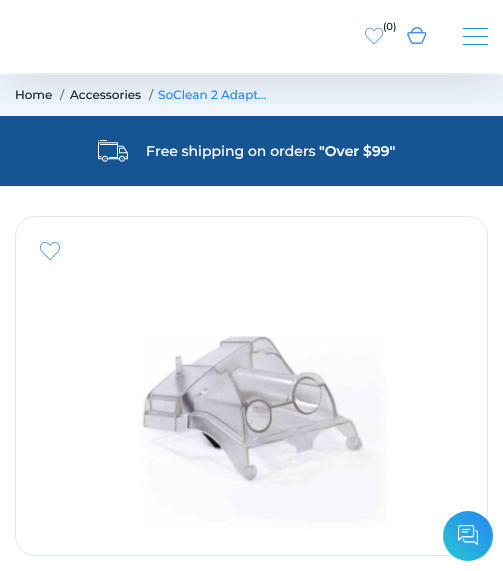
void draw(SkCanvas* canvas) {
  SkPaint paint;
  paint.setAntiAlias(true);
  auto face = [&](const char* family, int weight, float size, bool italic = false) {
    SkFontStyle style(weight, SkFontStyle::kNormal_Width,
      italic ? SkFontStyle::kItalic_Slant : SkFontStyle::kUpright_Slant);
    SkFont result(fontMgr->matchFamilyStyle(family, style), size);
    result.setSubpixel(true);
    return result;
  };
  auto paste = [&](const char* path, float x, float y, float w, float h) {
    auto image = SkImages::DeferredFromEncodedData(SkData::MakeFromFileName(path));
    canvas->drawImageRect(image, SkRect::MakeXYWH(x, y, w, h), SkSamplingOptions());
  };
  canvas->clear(0xffffffff);
  paint.setColor(0xffeff7fe);
  canvas->drawRect(SkRect::MakeXYWH(0, 75, 503, 41), paint);
  paint.setColor(0xff155594);
  canvas->drawRect(SkRect::MakeXYWH(0, 116, 503, 70), paint);
  paste("img/3.png", 98, 140, 30, 22);
  canvas->save();
  canvas->clipRect(SkRect::MakeXYWH(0, 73, 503, 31));
  paint.setColor(0x1a000000);
  paint.setMaskFilter(SkMaskFilter::MakeBlur(kNormal_SkBlurStyle, 20));
  canvas->drawRect(SkRect::MakeXYWH(0, 14, 503, 73), paint);
  paint.setMaskFilter(nullptr);
  canvas->restore();
  paste("img/1.png", 365, 27, 18, 18);
  paste("img/2.png", 407, 27, 20, 17);
  {
    const struct { float x, y, w, h; SkColor color; } items[] = {
      {463, 28, 25, 1, 0xff268bef},
      {463, 36, 25, 1, 0xff268bef},
      {463, 44, 25, 1, 0xff268bef},
    };
    for (auto [x, y, w, h, color] : items) {
      paint.setColor(color);
      canvas->drawRect(SkRect::MakeXYWH(x, y, w, h), paint);
    }
  }
  paint.setStroke(true);
  paint.setStrokeWidth(1);
  paint.setColor(0xffdce8f4);
  canvas->drawRoundRect(SkRect::MakeXYWH(15.5f, 216.5f, 472, 339), 19.5f, 19.5f, paint);
  paste("img/4.png", 140, 335, 246, 194);
  paste("img/5.png", 40, 241, 20, 20);
  paint.setStroke(false);
  {
    const SkColor colors[] = {0xffe41e3f, 0xffe41e3f, 0xff27c0d8, 0xff268bef, 0xff268bef, 0xff27c0d8};
    const float stops[] = {0, 0.2f, 0.4f, 0.6f, 0.8f, 1};
    const SkPoint ends[] = {{443, 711}, {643, 511}};
    paint.setShader(SkGradientShader::MakeLinear(ends, colors, stops, 6, SkTileMode::kClamp));
    paint.setAlpha(255);
  }
  canvas->drawCircle(468, 536, 25, paint);
  paste("img/6.png", 458, 525, 20, 20);
  auto f0 = face("Montserrat", 500, 10);
  paint.setShader(nullptr);
  paint.setColor(0xff152735);
  canvas->drawString("(0)", 383, 30, f0, paint);
  auto f1 = face("Montserrat", 500, 12);
  canvas->drawString("Home", 15, 99, f1, paint);
  paint.setColor(0xff6c757d);
  canvas->drawString("/", 60, 99, f1, paint);
  paint.setColor(0xff152735);
  canvas->drawString("Accessories", 70, 99, f1, paint);
  paint.setColor(0xff6c757d);
  canvas->drawString("/", 149, 99, f1, paint);
  paint.setColor(0xff268bef);
  canvas->drawString("SoClean 2 Adapt…", 158, 99, f1, paint);
  auto f2 = face("Montserrat", 500, 14);
  paint.setColor(0xffffffff);
  canvas->drawString("Free shipping on orders", 146, 156, f2, paint);
  auto f3 = face("Montserrat", 600, 14);
  canvas->drawString("\"Over $99\"", 319, 156, f3, paint);
}
